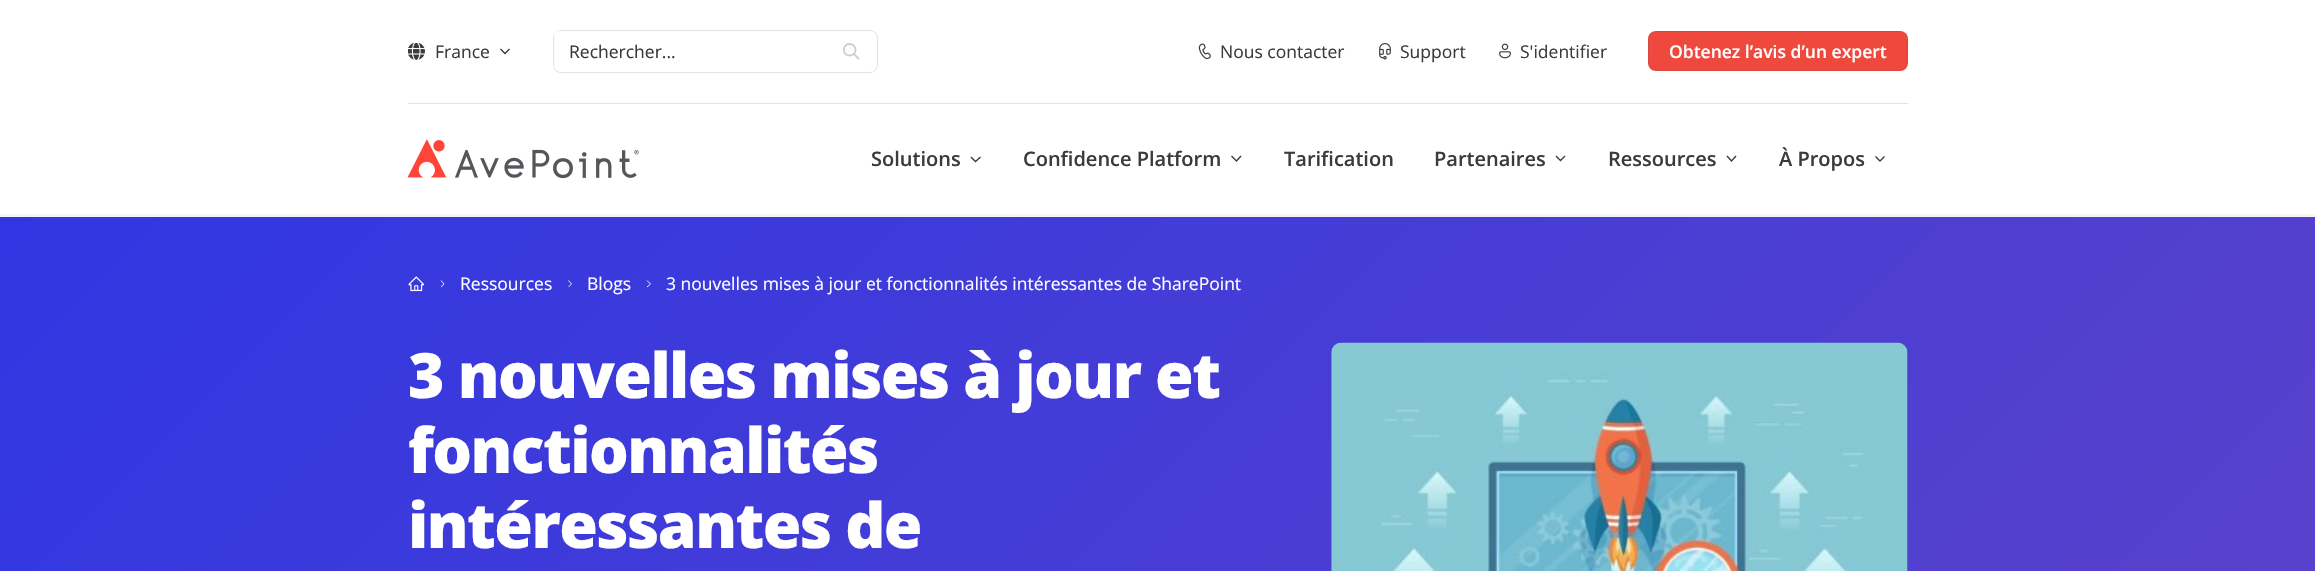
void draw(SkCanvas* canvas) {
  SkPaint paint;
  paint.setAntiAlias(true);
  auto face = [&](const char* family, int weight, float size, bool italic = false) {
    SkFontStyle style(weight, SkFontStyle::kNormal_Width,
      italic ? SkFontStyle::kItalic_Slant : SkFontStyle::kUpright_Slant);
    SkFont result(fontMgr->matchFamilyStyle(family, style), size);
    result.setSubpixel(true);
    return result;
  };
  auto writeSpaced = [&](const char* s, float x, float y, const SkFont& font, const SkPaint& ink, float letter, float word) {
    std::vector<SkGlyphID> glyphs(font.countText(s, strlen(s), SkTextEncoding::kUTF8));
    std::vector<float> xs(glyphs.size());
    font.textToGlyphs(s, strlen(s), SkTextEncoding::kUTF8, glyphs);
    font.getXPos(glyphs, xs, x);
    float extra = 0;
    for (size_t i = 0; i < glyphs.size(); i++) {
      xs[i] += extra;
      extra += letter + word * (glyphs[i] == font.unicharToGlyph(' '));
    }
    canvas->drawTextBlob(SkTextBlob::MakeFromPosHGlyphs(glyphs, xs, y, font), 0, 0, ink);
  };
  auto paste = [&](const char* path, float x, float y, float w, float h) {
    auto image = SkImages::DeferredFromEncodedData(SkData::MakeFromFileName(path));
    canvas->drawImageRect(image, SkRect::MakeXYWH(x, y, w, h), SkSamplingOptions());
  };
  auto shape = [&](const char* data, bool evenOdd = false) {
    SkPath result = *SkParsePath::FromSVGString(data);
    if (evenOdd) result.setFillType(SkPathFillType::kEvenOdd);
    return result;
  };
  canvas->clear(0xffffffff);
  paint.setColor(0xffe2e3e3);
  canvas->drawRect(SkRect::MakeXYWH(408, 103, 1500, 1), paint);
  paste("img/1.png", 408, 43, 17, 17);
  paint.setStroke(true);
  paint.setStrokeWidth(1.4f);
  paint.setColor(0xff3a3b3d);
  canvas->drawPath(shape("M500.5 49L505 53.5L509.5 49"), paint);
  paint.setStrokeWidth(1);
  paint.setColor(0xffe2e3e3);
  canvas->drawRoundRect(SkRect::MakeXYWH(553.5f, 30.5f, 324, 42), 7.5f, 7.5f, paint);
  paint.setStroke(false);
  paint.setColor(0xffffffff);
  canvas->drawPath(shape("M560 31H826V71H560C556.5 71 554 68.5 554 65V37C554 33.5 556.5 31 560 31Z"), paint);
  paint.setStroke(true);
  paint.setStrokeWidth(1.9f);
  paint.setStrokeCap(SkPaint::kSquare_Cap);
  paint.setColor(0xffcececf);
  canvas->drawPath(shape("M858.5 58.5L854 54M849.5 55.5C857.5 55.5 857.5 44 849.5 44C842 44 842 55.5 849.5 55.5Z"), paint);
  paste("img/2.png", 1198, 43, 13, 17);
  paste("img/3.png", 1379, 43, 12, 17);
  paste("img/4.png", 1499, 43, 12, 16);
  paint.setStroke(false);
  paint.setColor(0xffef493e);
  canvas->drawRoundRect(SkRect::MakeXYWH(1648, 31, 260, 40), 8, 8, paint);
  paint.setStroke(true);
  paint.setStrokeWidth(1);
  paint.setStrokeCap(SkPaint::kButt_Cap);
  paint.setColor(0x26404246);
  canvas->drawRoundRect(SkRect::MakeXYWH(1648.5f, 31.5f, 259, 39), 7.5f, 7.5f, paint);
  paint.setStroke(false);
  paint.setColor(0xfff5f5f5);
  canvas->drawRect(SkRect::MakeXYWH(0, 214, 2315, 3), paint);
  paste("img/5.png", 408, 139, 231, 40);
  paint.setStroke(true);
  paint.setStrokeWidth(1.4f);
  paint.setColor(0xff3a3b3d);
  canvas->drawPath(shape("M980.5 157L975.5 161.5L971 157"), paint);
  canvas->drawPath(shape("M1241 156L1236.5 161L1231.5 156"), paint);
  canvas->drawPath(shape("M1565 156L1560.5 160.5L1556 156"), paint);
  canvas->drawPath(shape("M1736 156L1731.5 161L1727 156"), paint);
  canvas->drawPath(shape("M1884.5 156.5L1880 161L1875.5 156.5"), paint);
  paint.setStroke(false);
  {
    const SkColor colors[] = {0xffe05d51, 0xffb23a8d, 0xff6b46c1, 0xff3037e2};
    const float stops[] = {0, 0.33f, 0.67f, 1};
    const SkPoint ends[] = {{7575, 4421}, {1685, -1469}};
    paint.setShader(SkGradientShader::MakeLinear(ends, colors, stops, 4, SkTileMode::kClamp));
    paint.setAlpha(255);
  }
  canvas->drawRect(SkRect::MakeXYWH(0, 217, 2315, 354), paint);
  paste("img/6.png", 408, 276, 16, 16);
  paint.setStroke(true);
  paint.setStrokeWidth(0.9f);
  paint.setShader(nullptr);
  paint.setColor(0xffffffff);
  canvas->drawPath(shape("M441 280.5L444 284L441 287"), paint);
  canvas->drawPath(shape("M568.5 280.5L571.5 284L568.5 287"), paint);
  canvas->drawPath(shape("M647 280.5L650.5 284L647 287"), paint);
  paste("img/7.png", 1331, 342, 577, 229);
  auto f0 = face("Open Sans", 400, 17.5f);
  paint.setStroke(false);
  paint.setColor(0xff3a3b3d);
  canvas->drawString("France", 435, 58, f0, paint);
  paint.setColor(0xff34373b);
  canvas->drawString("Rechercher...", 569, 58, f0, paint);
  paint.setColor(0xff3a3b3d);
  {
    const struct { const char* s; float x, y; } items[] = {
      {"Nous contacter", 1220, 58},
      {"Support", 1400, 58},
      {"S'identifier", 1520, 58},
    };
    for (auto [s, x, y] : items) {
      canvas->drawString(s, x, y, f0, paint);
    }
  }
  auto f1 = face("Open Sans", 600, 17.5f);
  paint.setColor(0xffffffff);
  canvas->drawString("Obtenez l’avis d’un expert", 1669, 58, f1, paint);
  auto f2 = face("Open Sans", 600, 20);
  paint.setColor(0xff3a3b3d);
  {
    const struct { const char* s; float x, y; } items[] = {
      {"Solutions", 871, 166},
      {"Confidence Platform", 1023, 166},
      {"Tarification", 1284, 166},
      {"Partenaires", 1434, 166},
      {"Ressources", 1608, 166},
      {"À Propos", 1779, 166},
    };
    for (auto [s, x, y] : items) {
      canvas->drawString(s, x, y, f2, paint);
    }
  }
  paint.setColor(0xffffffff);
  {
    const struct { const char* s; float x, y; } items[] = {
      {"Ressources", 460, 290},
      {"Blogs", 587, 290},
      {"3 nouvelles mises à jour et fonctionnalités intéressantes de SharePoint", 666, 290},
    };
    for (auto [s, x, y] : items) {
      canvas->drawString(s, x, y, f0, paint);
    }
  }
  auto f3 = face("Open Sans", 800, 62.5f);
  {
    const struct { const char* s; float x, y; } items[] = {
      {"3 nouvelles mises à jour et", 408, 398},
      {"fonctionnalités", 408, 473},
      {"intéressantes de", 408, 548},
    };
    for (auto [s, x, y] : items) {
      writeSpaced(s, x, y, f3, paint, -1.55f, 0);
    }
  }
}
